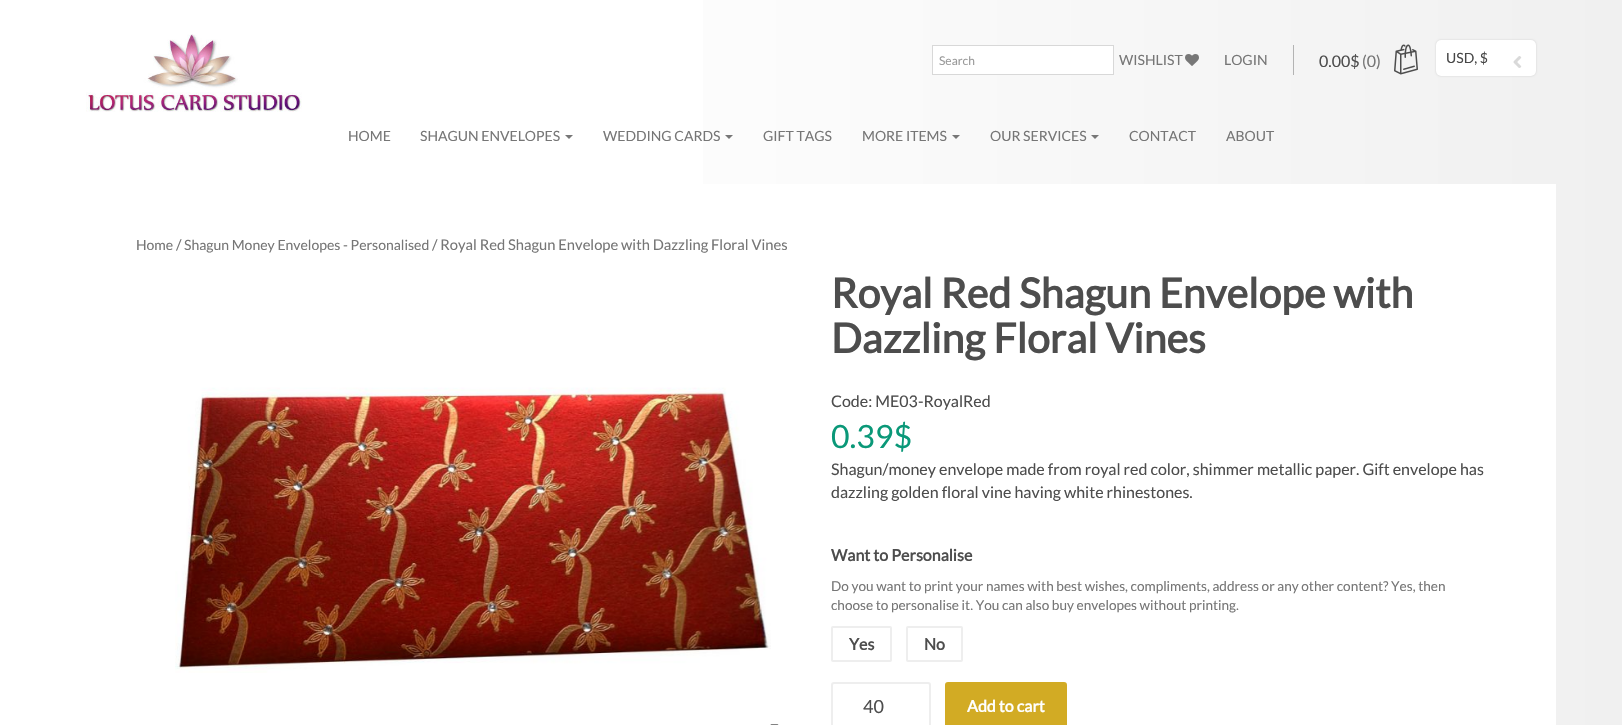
void draw(SkCanvas* canvas) {
  SkPaint paint;
  paint.setAntiAlias(true);
  auto face = [&](const char* family, int weight, float size, bool italic = false) {
    SkFontStyle style(weight, SkFontStyle::kNormal_Width,
      italic ? SkFontStyle::kItalic_Slant : SkFontStyle::kUpright_Slant);
    SkFont result(fontMgr->matchFamilyStyle(family, style), size);
    result.setSubpixel(true);
    return result;
  };
  auto paste = [&](const char* path, float x, float y, float w, float h) {
    auto image = SkImages::DeferredFromEncodedData(SkData::MakeFromFileName(path));
    canvas->drawImageRect(image, SkRect::MakeXYWH(x, y, w, h), SkSamplingOptions());
  };
  auto shape = [&](const char* data, bool evenOdd = false) {
    SkPath result = *SkParsePath::FromSVGString(data);
    if (evenOdd) result.setFillType(SkPathFillType::kEvenOdd);
    return result;
  };
  canvas->clear(0xffffffff);
  {
    const SkColor colors[] = {0xffffffff, 0xfff0f0f0};
    const float stops[] = {0.32f, 1};
    const SkPoint ends[] = {{0, 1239}, {1622, 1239}};
    paint.setShader(SkGradientShader::MakeLinear(ends, colors, stops, 2, SkTileMode::kClamp));
    paint.setAlpha(255);
  }
  canvas->drawRect(SkRect::MakeXYWH(703, 0, 919, 725), paint);
  paste("img/1.png", 86, 34, 216, 78);
  paint.setShader(nullptr);
  paint.setColor(0xffffffff);
  canvas->drawRect(SkRect::MakeXYWH(932.5f, 45.5f, 181, 29), paint);
  paint.setStroke(true);
  paint.setStrokeWidth(1);
  paint.setColor(0xffd8d8d8);
  canvas->drawRect(SkRect::MakeXYWH(932.5f, 45.5f, 181, 29), paint);
  paste("img/2.png", 1185, 54, 14, 12);
  paint.setStroke(false);
  paint.setColor(0xffb3b3b3);
  canvas->drawRect(SkRect::MakeXYWH(1293, 45, 1, 30), paint);
  paste("img/3.png", 1394, 44, 24, 31);
  paint.setColor(0xffcccccc);
  paint.setMaskFilter(SkMaskFilter::MakeBlur(kNormal_SkBlurStyle, 1));
  canvas->drawRoundRect(SkRect::MakeXYWH(1436, 40, 100, 36), 5, 5, paint);
  paint.setMaskFilter(nullptr);
  paint.setColor(0xffffffff);
  canvas->drawRoundRect(SkRect::MakeXYWH(1436, 40, 100, 36), 5, 5, paint);
  paste("img/4.png", 1513, 56, 9, 12);
  paint.setColor(0xff777777);
  canvas->drawPath(shape("M565 135H573L569 139Z"), paint);
  canvas->drawPath(shape("M725 135H733L729 139Z"), paint);
  canvas->drawPath(shape("M952 135H960L956 139Z"), paint);
  canvas->drawPath(shape("M1091 135H1099L1095 139Z"), paint);
  paint.setColor(0xffffffff);
  canvas->drawRect(SkRect::MakeXYWH(703, 184, 853, 541), paint);
  paste("img/5.png", 175, 387, 596, 286);
  paste("img/6.png", 770, 724, 9, 1);
  paint.setStroke(true);
  paint.setStrokeWidth(2);
  paint.setColor(0xffeeeeee);
  canvas->drawRoundRect(SkRect::MakeXYWH(832, 627, 59, 34), 1, 1, paint);
  canvas->drawRoundRect(SkRect::MakeXYWH(907, 627, 55, 34), 1, 1, paint);
  canvas->drawRoundRect(SkRect::MakeXYWH(832, 683, 98, 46), 2, 2, paint);
  paint.setStroke(false);
  paint.setColor(0xffd2ab24);
  canvas->drawRoundRect(SkRect::MakeXYWH(946, 683, 120, 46), 2, 2, paint);
  paint.setStroke(true);
  canvas->drawRoundRect(SkRect::MakeXYWH(946, 683, 120, 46), 2, 2, paint);
  auto f0 = face("Lato", 400, 12);
  paint.setStroke(false);
  paint.setColor(0xff999999);
  canvas->drawString("Search", 939, 65, f0, paint);
  auto f1 = face("Lato", 400, 14);
  paint.setColor(0xff767676);
  canvas->drawString("WISHLIST", 1119, 65, f1, paint);
  canvas->drawString("LOGIN", 1224, 65, f1, paint);
  auto f2 = face("Lato", 400, 16);
  paint.setColor(0xff4d4d4d);
  canvas->drawString("0.00$", 1319, 67, f2, paint);
  paint.setColor(0xff767676);
  canvas->drawString("(0)", 1362, 67, f2, paint);
  paint.setColor(0xff474747);
  canvas->drawString("USD, $", 1446, 63, f1, paint);
  paint.setColor(0xff767676);
  {
    const struct { const char* s; float x, y; } items[] = {
      {"HOME", 348, 141},
      {"SHAGUN ENVELOPES", 420, 141},
      {"WEDDING CARDS", 603, 141},
      {"GIFT TAGS", 763, 141},
      {"MORE ITEMS", 862, 141},
      {"OUR SERVICES", 990, 141},
      {"CONTACT", 1129, 141},
      {"ABOUT", 1226, 141},
      {"Home", 136, 250},
    };
    for (auto [s, x, y] : items) {
      canvas->drawString(s, x, y, f1, paint);
    }
  }
  auto f3 = face("Lato", 400, 14.75f);
  canvas->drawString("/", 176, 250, f3, paint);
  canvas->drawString("Shagun Money Envelopes - Personalised", 184, 250, f1, paint);
  canvas->drawString("/ Royal Red Shagun Envelope with Dazzling Floral Vines", 432, 250, f3, paint);
  auto f4 = face("Lato", 700, 41);
  paint.setColor(0xff4d4d4d);
  canvas->drawString("Royal Red Shagun Envelope with", 831, 308, f4, paint);
  canvas->drawString("Dazzling Floral Vines", 831, 353, f4, paint);
  canvas->drawString("Code: ME03-RoyalRed", 831, 407, f2, paint);
  auto f5 = face("Lato", 400, 32);
  paint.setColor(0xff0a9878);
  canvas->drawString("0.39$", 831, 448, f5, paint);
  paint.setColor(0xff4d4d4d);
  canvas->drawString("Shagun/money envelope made from royal red color, shimmer metallic paper. Gift envelope has", 831, 475, f2, paint);
  canvas->drawString("dazzling golden floral vine having white rhinestones.", 831, 498, f2, paint);
  auto f6 = face("Lato", 700, 16);
  canvas->drawString("Want to Personalise", 831, 561, f6, paint);
  auto f7 = face("Lato", 400, 13.6f);
  paint.setColor(0xff767676);
  canvas->drawString("Do you want to print your names with best wishes, compliments, address or any other content? Yes, then", 831, 591, f7, paint);
  canvas->drawString("choose to personalise it. You can also buy envelopes without printing.", 831, 610, f7, paint);
  paint.setColor(0xff4d4d4d);
  canvas->drawString("Yes", 849, 650, f6, paint);
  canvas->drawString("No", 924, 650, f6, paint);
  auto f8 = face("Lato", 400, 18);
  canvas->drawString("40", 863, 713, f8, paint);
  paint.setColor(0xffffffff);
  canvas->drawString("Add to cart", 967, 712, f6, paint);
}
